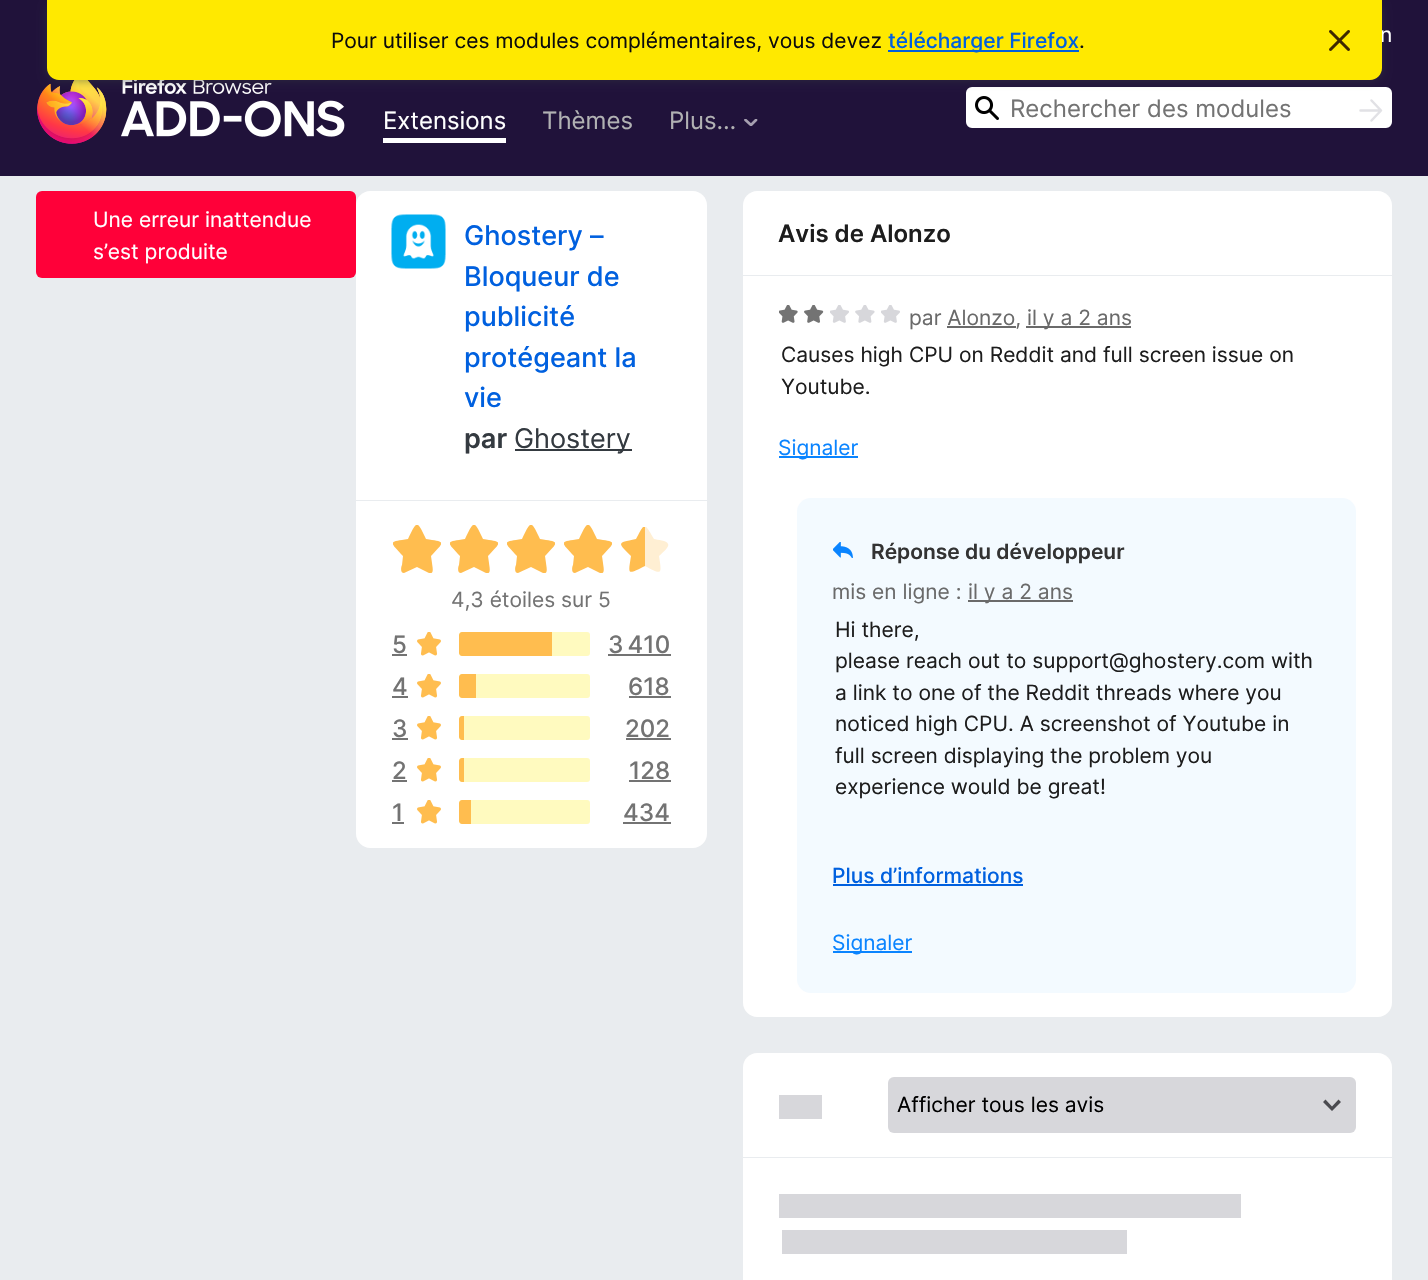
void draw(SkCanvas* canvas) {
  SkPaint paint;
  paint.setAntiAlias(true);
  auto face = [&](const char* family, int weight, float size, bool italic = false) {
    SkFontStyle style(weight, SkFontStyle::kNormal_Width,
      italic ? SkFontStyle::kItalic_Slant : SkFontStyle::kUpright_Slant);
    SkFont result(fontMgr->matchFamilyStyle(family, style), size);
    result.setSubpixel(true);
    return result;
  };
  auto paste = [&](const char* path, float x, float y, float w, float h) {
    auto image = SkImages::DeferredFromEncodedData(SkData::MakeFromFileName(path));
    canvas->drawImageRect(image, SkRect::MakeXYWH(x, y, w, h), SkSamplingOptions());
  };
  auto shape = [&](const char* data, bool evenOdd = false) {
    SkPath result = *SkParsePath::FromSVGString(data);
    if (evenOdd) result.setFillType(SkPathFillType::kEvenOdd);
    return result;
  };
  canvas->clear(0xff20123a);
  paste("img/1.png", 37, 80, 308, 64);
  paint.setColor(0xffffffff);
  canvas->drawRect(SkRect::MakeXYWH(383, 138, 123, 5), paint);
  canvas->save();
  canvas->clipRect(SkRect::MakeXYWH(744, 119, 14, 7));
  paint.setStroke(true);
  paint.setStrokeWidth(2.7f);
  paint.setStrokeCap(SkPaint::kRound_Cap);
  paint.setStrokeJoin(SkPaint::kRound_Join);
  paint.setColor(0xffa6a0b0);
  canvas->drawPath(shape("M756 120L751 125L745.5 120"), paint);
  canvas->restore();
  paint.setStroke(false);
  paint.setColor(0xffffffff);
  canvas->drawRoundRect(SkRect::MakeXYWH(967, 88, 424, 39), 5, 5, paint);
  paint.setStroke(true);
  paint.setStrokeWidth(2);
  paint.setStrokeCap(SkPaint::kButt_Cap);
  paint.setStrokeJoin(SkPaint::kMiter_Join);
  canvas->drawRoundRect(SkRect::MakeXYWH(967, 88, 424, 39), 5, 5, paint);
  paste("img/2.png", 975, 96, 24, 24);
  paint.setStrokeWidth(2.5f);
  paint.setStrokeCap(SkPaint::kRound_Cap);
  paint.setStrokeJoin(SkPaint::kRound_Join);
  paint.setColor(0xffe1e1e5);
  canvas->drawPath(shape("M1360.5 110.5H1380M1371.5 100.5L1381 110.5L1371.5 120.5"), paint);
  paint.setStroke(false);
  paint.setColor(0x80343a40);
  paint.setMaskFilter(SkMaskFilter::MakeBlur(kNormal_SkBlurStyle, 5));
  canvas->drawRoundRect(SkRect::MakeXYWH(47, 2, 1335, 79), 12, 12, paint);
  paint.setMaskFilter(nullptr);
  paint.setColor(0xffe9ecef);
  canvas->drawRect(SkRect::MakeXYWH(0, 176, 1428, 1104), paint);
  paint.setColor(0xffff0039);
  canvas->drawRoundRect(SkRect::MakeXYWH(36, 191, 320, 87), 6, 6, paint);
  paint.setColor(0xffffffff);
  canvas->drawPath(shape("M370 191H693C700.5 191 707 197.5 707 205V500H356V205C356 197.5 362.5 191 370 191Z"), paint);
  paste("img/4.png", 391, 214, 55, 55);
  paint.setColor(0xff343a40);
  canvas->drawRect(SkRect::MakeXYWH(515, 449, 117, 2), paint);
  paint.setColor(0xffffffff);
  canvas->drawPath(shape("M356 501H707V834C707 841.5 700.5 848 693 848H370C362.5 848 356 841.5 356 834Z"), paint);
  canvas->save();
  canvas->clipRect(SkRect::MakeXYWH(393, 525, 48, 48));
  paint.setColor(0xffffbd4f);
  canvas->drawPath(shape("M404 573C400 573 401 567 402 565L403 556C389 541 388 542 408 539C417 520 417 520 426 539C446 542 445 541 431 556L432 563C432 565 435 575 429 573L417 567Z"), paint);
  canvas->restore();
  canvas->save();
  canvas->clipRect(SkRect::MakeXYWH(450, 525, 48, 48));
  canvas->drawPath(shape("M461 573C457 573 458 567 459 565L460 556C446 541 445 542 465 539C474 520 474 520 483 539C503 542 502 541 488 556L489 563C489 565 492 575 486 573L474 567Z"), paint);
  canvas->restore();
  canvas->save();
  canvas->clipRect(SkRect::MakeXYWH(507, 525, 48, 48));
  canvas->drawPath(shape("M518 573C514 573 515 567 516 565L517 556C503 541 502 542 522 539C531 520 531 520 540 539C560 542 559 541 545 556L546 563C546 565 549 575 543 573L531 567Z"), paint);
  canvas->restore();
  canvas->save();
  canvas->clipRect(SkRect::MakeXYWH(564, 525, 48, 48));
  canvas->drawPath(shape("M575 573C571 573 572 567 573 565L574 556C560 541 559 542 579 539C588 520 588 520 597 539C617 542 616 541 602 556L603 563C603 565 606 575 600 573L588 567Z"), paint);
  canvas->restore();
  canvas->save();
  canvas->clipRect(SkRect::MakeXYWH(621, 527, 50, 46));
  {
    const SkColor colors[] = {0xffffbd4f, 0xffffefd3};
    const float stops[] = {0.5f, 0.5f};
    const SkPoint ends[] = {{621, 527}, {669, 527}};
    paint.setShader(SkGradientShader::MakeLinear(ends, colors, stops, 2, SkTileMode::kClamp));
    paint.setAlpha(255);
  }
  canvas->drawPath(shape("M668 544C667 540 657 540 654 539C644 522 645 522 636 539C617 543 617 542 631 556C628 575 627 575 645 566C662 575 662 575 659 556C661 554 670 547 668 544Z"), paint);
  canvas->restore();
  paint.setShader(nullptr);
  paint.setColor(0xff737373);
  canvas->drawRect(SkRect::MakeXYWH(392, 654, 15, 2), paint);
  paste("img/5.png", 417, 632, 24, 24);
  paint.setColor(0xfffffabf);
  canvas->drawRoundRect(SkRect::MakeXYWH(459, 632, 131, 24), 3, 3, paint);
  paint.setColor(0xffffbd4f);
  canvas->drawPath(shape("M462 632H552V656H462C460.5 656 459 654.5 459 653V635C459 633.5 460.5 632 462 632Z"), paint);
  paint.setColor(0xff737373);
  canvas->drawRect(SkRect::MakeXYWH(608, 654, 63, 2), paint);
  canvas->drawRect(SkRect::MakeXYWH(392, 696, 16, 2), paint);
  paste("img/5.png", 417, 674, 24, 24);
  paint.setColor(0xfffffabf);
  canvas->drawRoundRect(SkRect::MakeXYWH(459, 674, 131, 24), 3, 3, paint);
  paint.setColor(0xffffbd4f);
  canvas->drawPath(shape("M462 674H476V698H462C460.5 698 459 696.5 459 695V677C459 675.5 460.5 674 462 674Z"), paint);
  paint.setColor(0xff737373);
  canvas->drawRect(SkRect::MakeXYWH(629, 696, 42, 2), paint);
  canvas->drawRect(SkRect::MakeXYWH(392, 738, 16, 2), paint);
  paste("img/5.png", 417, 716, 24, 24);
  paint.setColor(0xfffffabf);
  canvas->drawRoundRect(SkRect::MakeXYWH(459, 716, 131, 24), 3, 3, paint);
  paint.setColor(0xffffbd4f);
  canvas->drawPath(shape("M462 716H464V740H462C460.5 740 459 738.5 459 737V719C459 717.5 460.5 716 462 716Z"), paint);
  paint.setColor(0xff737373);
  canvas->drawRect(SkRect::MakeXYWH(626, 738, 45, 2), paint);
  canvas->drawRect(SkRect::MakeXYWH(392, 780, 15, 2), paint);
  paste("img/5.png", 417, 758, 24, 24);
  paint.setColor(0xfffffabf);
  canvas->drawRoundRect(SkRect::MakeXYWH(459, 758, 131, 24), 3, 3, paint);
  paint.setColor(0xffffbd4f);
  canvas->drawPath(shape("M462 758H464V782H462C460.5 782 459 780.5 459 779V761C459 759.5 460.5 758 462 758Z"), paint);
  paint.setColor(0xff737373);
  canvas->drawRect(SkRect::MakeXYWH(629, 780, 42, 2), paint);
  canvas->drawRect(SkRect::MakeXYWH(392, 822, 12, 2), paint);
  paste("img/5.png", 417, 800, 24, 24);
  paint.setColor(0xfffffabf);
  canvas->drawRoundRect(SkRect::MakeXYWH(459, 800, 131, 24), 3, 3, paint);
  paint.setColor(0xffffbd4f);
  canvas->drawPath(shape("M462 800H471V824H462C460.5 824 459 822.5 459 821V803C459 801.5 460.5 800 462 800Z"), paint);
  paint.setColor(0xff737373);
  canvas->drawRect(SkRect::MakeXYWH(623, 822, 48, 2), paint);
  paint.setColor(0xffffffff);
  canvas->drawPath(shape("M757 191H1378C1385.5 191 1392 197.5 1392 205V275H743V205C743 197.5 749.5 191 757 191Z"), paint);
  canvas->drawPath(shape("M743 276H1392V1003C1392 1010.5 1385.5 1017 1378 1017H757C749.5 1017 743 1010.5 743 1003Z"), paint);
  paste("img/6.png", 779, 305, 19, 18);
  paste("img/7.png", 804, 305, 20, 18);
  paste("img/8.png", 830, 305, 19, 18);
  paste("img/9.png", 855, 305, 20, 18);
  paste("img/8.png", 881, 305, 19, 18);
  {
    const struct { float x, y, w, h; SkColor color; } items[] = {
      {1026, 326, 105, 2, 0xff6a6a6a},
      {947, 326, 69, 2, 0xff6a6a6a},
      {779, 456, 79, 2, 0xff0a84ff},
    };
    for (auto [x, y, w, h, color] : items) {
      paint.setColor(color);
      canvas->drawRect(SkRect::MakeXYWH(x, y, w, h), paint);
    }
  }
  paint.setColor(0xfff3faff);
  canvas->drawRoundRect(SkRect::MakeXYWH(797, 498, 559, 495), 14, 14, paint);
  paste("img/10.png", 833, 542, 20, 16);
  {
    const struct { float x, y, w, h; SkColor color; } items[] = {
      {968, 600, 105, 2, 0xff6a6a6a},
      {833, 884, 190, 2, 0xff0060df},
      {833, 951, 79, 2, 0xff0a84ff},
    };
    for (auto [x, y, w, h, color] : items) {
      paint.setColor(color);
      canvas->drawRect(SkRect::MakeXYWH(x, y, w, h), paint);
    }
  }
  paint.setColor(0xffffffff);
  canvas->drawPath(shape("M757 1053H1378C1385.5 1053 1392 1059.5 1392 1067V1157H743V1067C743 1059.5 749.5 1053 757 1053Z"), paint);
  paint.setColor(0xffd7d7db);
  canvas->drawRect(SkRect::MakeXYWH(779, 1095, 43, 24), paint);
  canvas->drawRoundRect(SkRect::MakeXYWH(888, 1077, 468, 56), 6, 6, paint);
  paint.setColor(0xff4a4a4f);
  canvas->drawPath(shape("M1338.5 1099.5L1332 1106.5L1325.5 1099.5L1323 1102L1332 1111L1341 1102Z", true), paint);
  {
    const struct { float x, y, w, h; SkColor color; } items[] = {
      {743, 1158, 649, 122, 0xffffffff},
      {779, 1194, 462, 24, 0xffd7d7db},
      {782, 1230, 345, 24, 0xffd7d7db},
    };
    for (auto [x, y, w, h, color] : items) {
      paint.setColor(color);
      canvas->drawRect(SkRect::MakeXYWH(x, y, w, h), paint);
    }
  }
  auto f0 = face("Inter", 400, 21);
  paint.setColor(0xffffffff);
  canvas->drawString("n", 1380, 42, f0, paint);
  auto f1 = face("Inter", 400, 24);
  canvas->drawString("Extensions", 383, 129, f1, paint);
  paint.setColor(0xffb1b1b3);
  canvas->drawString("Thèmes", 542, 129, f1, paint);
  canvas->drawString("Plus…", 669, 129, f1, paint);
  paint.setColor(0xff737373);
  canvas->drawString("Rechercher des modules", 1010, 117, f1, paint);
  paint.setColor(0xffffe900);
  canvas->drawPath(shape("M47 0H1382V68C1382 74.5 1376.5 80 1370 80H59C52.5 80 47 74.5 47 68Z"), paint);
  paint.setColor(0xff0c0c0d);
  canvas->drawString("Pour utiliser ces modules complémentaires, vous devez", 331, 48, f0, paint);
  canvas->drawString(".", 1079, 48, f0, paint);
  paint.setColor(0xff0060df);
  canvas->drawRect(SkRect::MakeXYWH(888, 50, 191, 2), paint);
  auto f2 = face("Inter", 500, 21);
  canvas->drawString("télécharger Firefox", 888, 48, f2, paint);
  paste("img/3.png", 1329, 30, 21, 21);
  paint.setColor(0xffffffff);
  canvas->drawString("Une erreur inattendue", 93, 227, f0, paint);
  canvas->drawString("s’est produite", 93, 259, f0, paint);
  auto f3 = face("Inter", 500, 27);
  paint.setColor(0xff0060df);
  {
    const struct { const char* s; float x, y; } items[] = {
      {"Ghostery –", 464, 245},
      {"Bloqueur de", 464, 286},
      {"publicité", 464, 326},
      {"protégeant la", 464, 367},
      {"vie", 464, 407},
    };
    for (auto [s, x, y] : items) {
      canvas->drawString(s, x, y, f3, paint);
    }
  }
  auto f4 = face("Inter", 600, 27);
  paint.setColor(0xff343a40);
  canvas->drawString("par", 464, 448, f4, paint);
  auto f5 = face("Inter", 400, 27);
  canvas->drawString("Ghostery", 514, 448, f5, paint);
  paint.setColor(0xff737373);
  canvas->drawString("4,3 étoiles sur 5", 451, 607, f0, paint);
  auto f6 = face("Inter", 500, 24);
  {
    const struct { const char* s; float x, y; } items[] = {
      {"5", 392, 653},
      {"3 410", 608, 653},
      {"4", 392, 695},
      {"618", 628, 695},
      {"3", 392, 737},
      {"202", 625, 737},
      {"2", 392, 779},
      {"128", 629, 779},
      {"1", 392, 821},
      {"434", 623, 821},
    };
    for (auto [s, x, y] : items) {
      canvas->drawString(s, x, y, f6, paint);
    }
  }
  auto f7 = face("Inter", 600, 24);
  paint.setColor(0xff1d1d1d);
  canvas->drawString("Avis de Alonzo", 778, 242, f7, paint);
  paint.setColor(0xff6a6a6a);
  canvas->drawString("par Alonzo,", 909, 325, f0, paint);
  canvas->drawString("il y a 2 ans", 1027, 325, f0, paint);
  paint.setColor(0xff1d1d1d);
  canvas->drawString("Causes high CPU on Reddit and full screen issue on", 781, 362, f0, paint);
  canvas->drawString("Youtube.", 781, 394, f0, paint);
  paint.setColor(0xff0a84ff);
  canvas->drawString("Signaler", 778, 455, f0, paint);
  auto f8 = face("Inter", 600, 21);
  paint.setColor(0xff333333);
  canvas->drawString("Réponse du développeur", 871, 559, f8, paint);
  paint.setColor(0xff6a6a6a);
  canvas->drawString("mis en ligne :", 832, 599, f0, paint);
  canvas->drawString("il y a 2 ans", 968, 599, f0, paint);
  paint.setColor(0xff1d1d1d);
  {
    const struct { const char* s; float x, y; } items[] = {
      {"Hi there,", 835, 637},
      {"please reach out to support@ghostery.com with", 835, 668},
      {"a link to one of the Reddit threads where you", 835, 700},
      {"noticed high CPU. A screenshot of Youtube in", 835, 731},
      {"full screen displaying the problem you", 835, 763},
      {"experience would be great!", 835, 794},
    };
    for (auto [s, x, y] : items) {
      canvas->drawString(s, x, y, f0, paint);
    }
  }
  paint.setColor(0xff0060df);
  canvas->drawString("Plus d’informations", 832, 883, f2, paint);
  paint.setColor(0xff0a84ff);
  canvas->drawString("Signaler", 832, 950, f0, paint);
  paint.setColor(0xff000000);
  canvas->drawString("Afficher tous les avis", 897, 1112, f0, paint);
}
